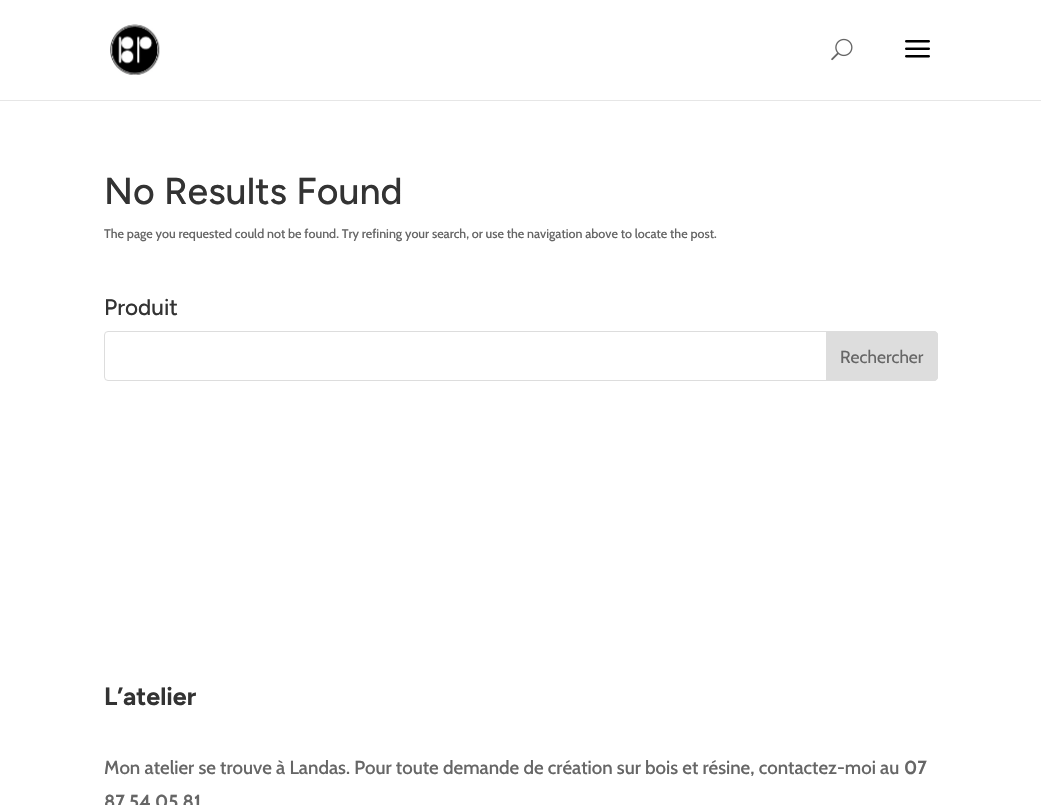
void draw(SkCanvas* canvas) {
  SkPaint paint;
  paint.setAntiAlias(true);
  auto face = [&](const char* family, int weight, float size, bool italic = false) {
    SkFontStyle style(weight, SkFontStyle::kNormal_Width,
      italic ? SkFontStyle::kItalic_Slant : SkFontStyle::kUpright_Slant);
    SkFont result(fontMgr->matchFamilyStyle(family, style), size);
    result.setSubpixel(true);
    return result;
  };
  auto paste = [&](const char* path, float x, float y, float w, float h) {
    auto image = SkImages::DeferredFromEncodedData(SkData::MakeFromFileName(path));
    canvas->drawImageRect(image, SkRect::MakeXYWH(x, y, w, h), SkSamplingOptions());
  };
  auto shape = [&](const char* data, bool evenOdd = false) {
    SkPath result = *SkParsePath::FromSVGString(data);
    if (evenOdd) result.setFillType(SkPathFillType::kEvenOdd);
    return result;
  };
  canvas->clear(0xffffffff);
  paint.setColor(0xffe6e6e6);
  canvas->drawRect(SkRect::MakeXYWH(0, 100, 1041, 1), paint);
  paste("img/1.png", 110, 24, 50, 51);
  paste("img/2.png", 831, 38, 22, 23);
  paste("img/3.png", 905, 40, 25, 18);
  paint.setStroke(true);
  paint.setStrokeWidth(1);
  paint.setColor(0xffdddddd);
  canvas->drawRoundRect(SkRect::MakeXYWH(104.5f, 331.5f, 833, 49), 3.5f, 3.5f, paint);
  paint.setStroke(false);
  canvas->drawPath(shape("M826.5 331.5H934C936 331.5 937.5 333 937.5 335V377C937.5 379 936 380.5 934 380.5H826.5Z"), paint);
  paint.setStroke(true);
  canvas->drawPath(shape("M826.5 331.5H934C936 331.5 937.5 333 937.5 335V377C937.5 379 936 380.5 934 380.5H826.5Z"), paint);
  auto f0 = face("Figtree", 500, 37.5f);
  paint.setStroke(false);
  paint.setColor(0xff333333);
  canvas->drawString("No Results Found", 104, 204, f0, paint);
  auto f1 = face("Cabin", 500, 12.5f);
  paint.setColor(0xff666666);
  canvas->drawString("The page you requested could not be found. Try refining your search, or use the navigation above to locate the post.", 104, 238, f1, paint);
  auto f2 = face("Figtree", 500, 22.5f);
  paint.setColor(0xff333333);
  canvas->drawString("Produit", 104, 315, f2, paint);
  auto f3 = face("Cabin", 400, 17.5f);
  paint.setColor(0xff666666);
  canvas->drawString("Rechercher", 840, 363, f3, paint);
  auto f4 = face("Figtree", 700, 25);
  paint.setColor(0xff333333);
  canvas->drawString("L’atelier", 104, 705, f4, paint);
  auto f5 = face("Cabin", 500, 18.75f);
  paint.setColor(0xff666666);
  canvas->drawString("Mon atelier se trouve à Landas. Pour toute demande de création sur bois et résine, contactez-moi au", 104, 774, f5, paint);
  auto f6 = face("Cabin", 700, 18.75f);
  canvas->drawString("07", 904, 774, f6, paint);
  canvas->drawString("87 54 05 81", 104, 808, f6, paint);
}
